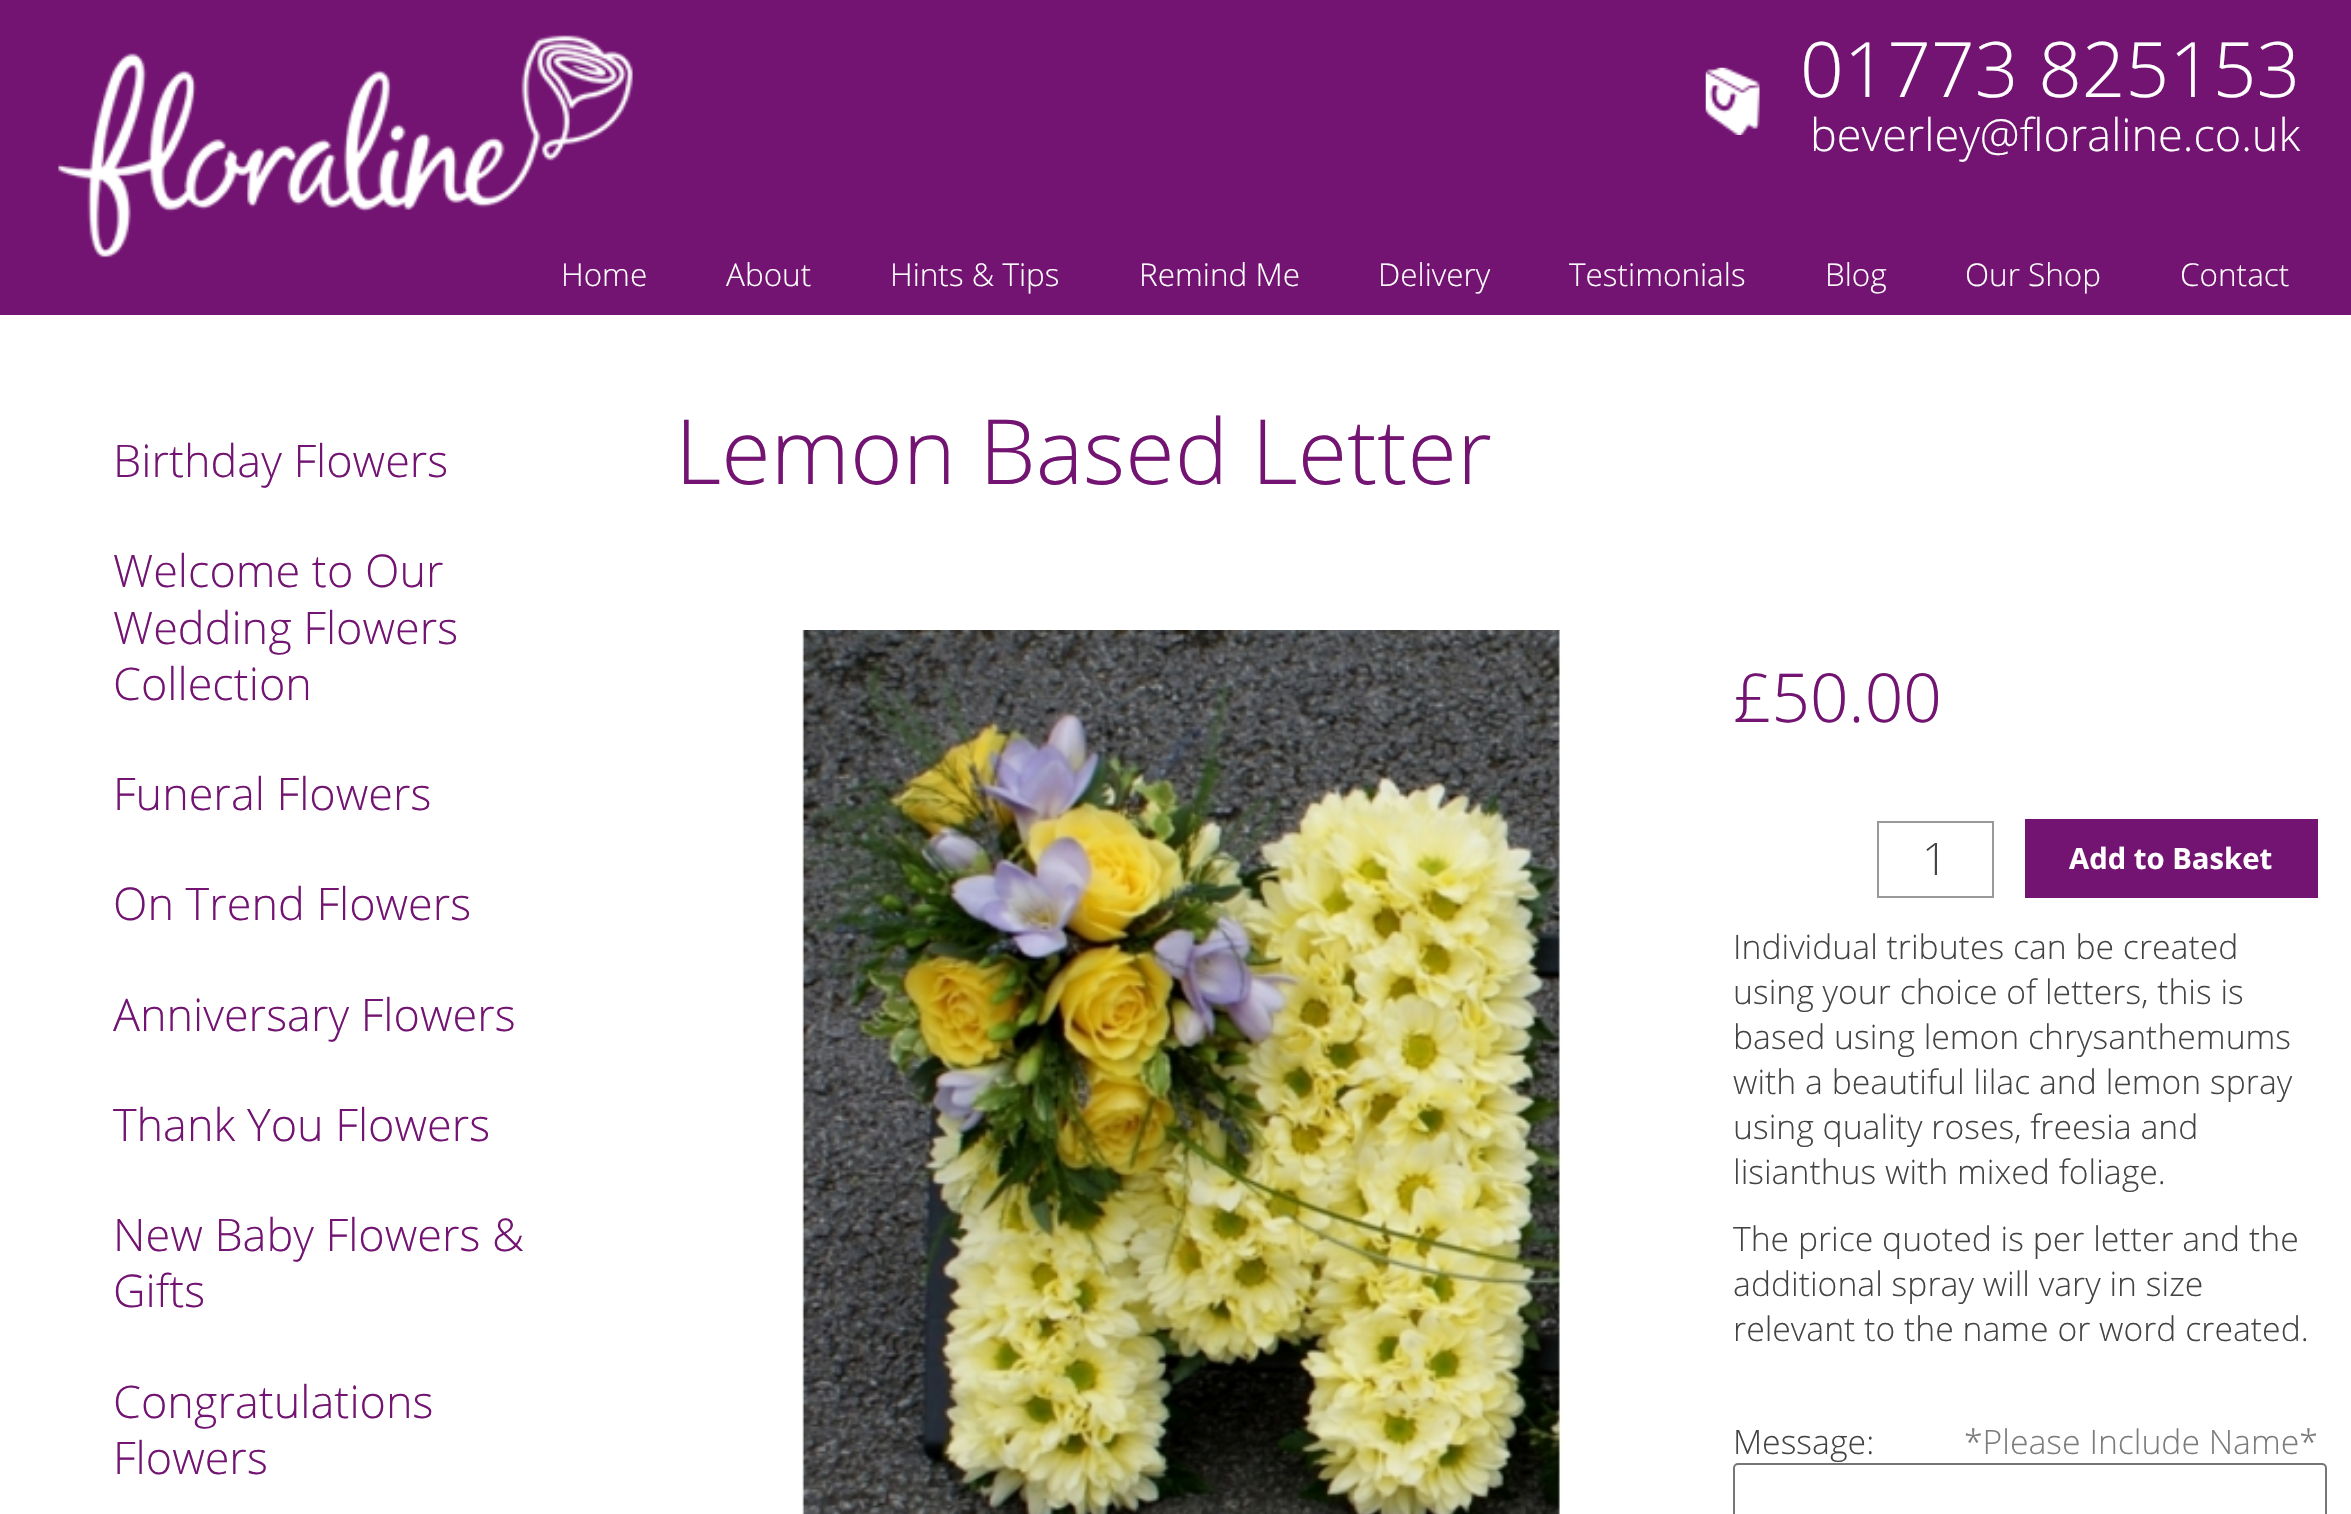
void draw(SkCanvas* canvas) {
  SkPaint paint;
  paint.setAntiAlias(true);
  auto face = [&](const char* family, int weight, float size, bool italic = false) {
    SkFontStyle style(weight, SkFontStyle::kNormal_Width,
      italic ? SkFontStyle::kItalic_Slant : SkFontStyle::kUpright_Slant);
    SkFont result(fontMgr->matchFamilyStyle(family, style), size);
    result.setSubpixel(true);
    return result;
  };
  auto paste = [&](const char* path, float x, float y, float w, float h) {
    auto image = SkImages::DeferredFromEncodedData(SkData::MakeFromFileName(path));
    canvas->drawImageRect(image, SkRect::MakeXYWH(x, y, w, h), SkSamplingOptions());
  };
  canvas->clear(0xff731472);
  paste("img/1.png", 58, 35, 575, 223);
  paste("img/2.png", 1705, 67, 55, 68);
  paint.setColor(0xffffffff);
  canvas->drawRect(SkRect::MakeXYWH(0, 315, 2351, 1199), paint);
  paste("img/3.png", 801, 630, 762, 884);
  paint.setStroke(true);
  paint.setStrokeWidth(2);
  paint.setColor(0xff999999);
  canvas->drawRect(SkRect::MakeXYWH(1878, 822, 115, 75), paint);
  paint.setStroke(false);
  paint.setColor(0xff731472);
  canvas->drawRect(SkRect::MakeXYWH(2025, 819, 293, 79), paint);
  paint.setStroke(true);
  paint.setColor(0xff767676);
  canvas->drawRoundRect(SkRect::MakeXYWH(1734, 1464, 592, 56), 4, 4, paint);
  auto f0 = face("Open Sans", 300, 76.5f);
  paint.setStroke(false);
  paint.setColor(0xffffffff);
  canvas->drawString("01773 825153", 1800, 97, f0, paint);
  auto f1 = face("Open Sans", 300, 45);
  canvas->drawString("beverley@floraline.co.uk", 1810, 151, f1, paint);
  auto f2 = face("Open Sans", 300, 31.5f);
  {
    const struct { const char* s; float x, y; } items[] = {
      {"Home", 561, 286},
      {"About", 726, 286},
      {"Hints & Tips", 890, 286},
      {"Remind Me", 1139, 286},
      {"Delivery", 1378, 286},
      {"Testimonials", 1569, 286},
      {"Blog", 1825, 286},
      {"Our Shop", 1965, 286},
      {"Contact", 2180, 286},
    };
    for (auto [s, x, y] : items) {
      canvas->drawString(s, x, y, f2, paint);
    }
  }
  paint.setColor(0xff731472);
  {
    const struct { const char* s; float x, y; } items[] = {
      {"Birthday Flowers", 113, 477},
      {"Welcome to Our", 113, 587},
      {"Wedding Flowers", 113, 644},
      {"Collection", 113, 700},
      {"Funeral Flowers", 113, 810},
      {"On Trend Flowers", 113, 920},
      {"Anniversary Flowers", 113, 1031},
      {"Thank You Flowers", 113, 1141},
      {"New Baby Flowers &", 113, 1251},
      {"Gifts", 113, 1307},
      {"Congratulations", 113, 1418},
      {"Flowers", 113, 1474},
    };
    for (auto [s, x, y] : items) {
      canvas->drawString(s, x, y, f1, paint);
    }
  }
  auto f3 = face("Open Sans", 300, 90);
  canvas->drawString("Lemon Based Letter", 675, 484, f3, paint);
  auto f4 = face("Open Sans", 300, 67.5f);
  canvas->drawString("£50.00", 1733, 722, f4, paint);
  paint.setColor(0xff444444);
  canvas->drawString("1", 1922, 875, f1, paint);
  auto f5 = face("Open Sans", 700, 29.25f);
  paint.setColor(0xffffffff);
  canvas->drawString("Add to Basket", 2069, 869, f5, paint);
  auto f6 = face("Open Sans", 300, 33.75f);
  paint.setColor(0xff444444);
  {
    const struct { const char* s; float x, y; } items[] = {
      {"Individual tributes can be created", 1733, 959},
      {"using your choice of letters, this is", 1733, 1004},
      {"based using lemon chrysanthemums", 1733, 1049},
      {"with a beautiful lilac and lemon spray", 1733, 1094},
      {"using quality roses, freesia and", 1733, 1139},
      {"lisianthus with mixed foliage.", 1733, 1184},
      {"The price quoted is per letter and the", 1733, 1251},
      {"additional spray will vary in size", 1733, 1296},
      {"relevant to the name or word created.", 1733, 1341},
      {"Message:", 1733, 1454},
    };
    for (auto [s, x, y] : items) {
      canvas->drawString(s, x, y, f6, paint);
    }
  }
  paint.setColor(0xff7c7c7c);
  canvas->drawString("*Please Include Name*", 1964, 1454, f6, paint);
}
